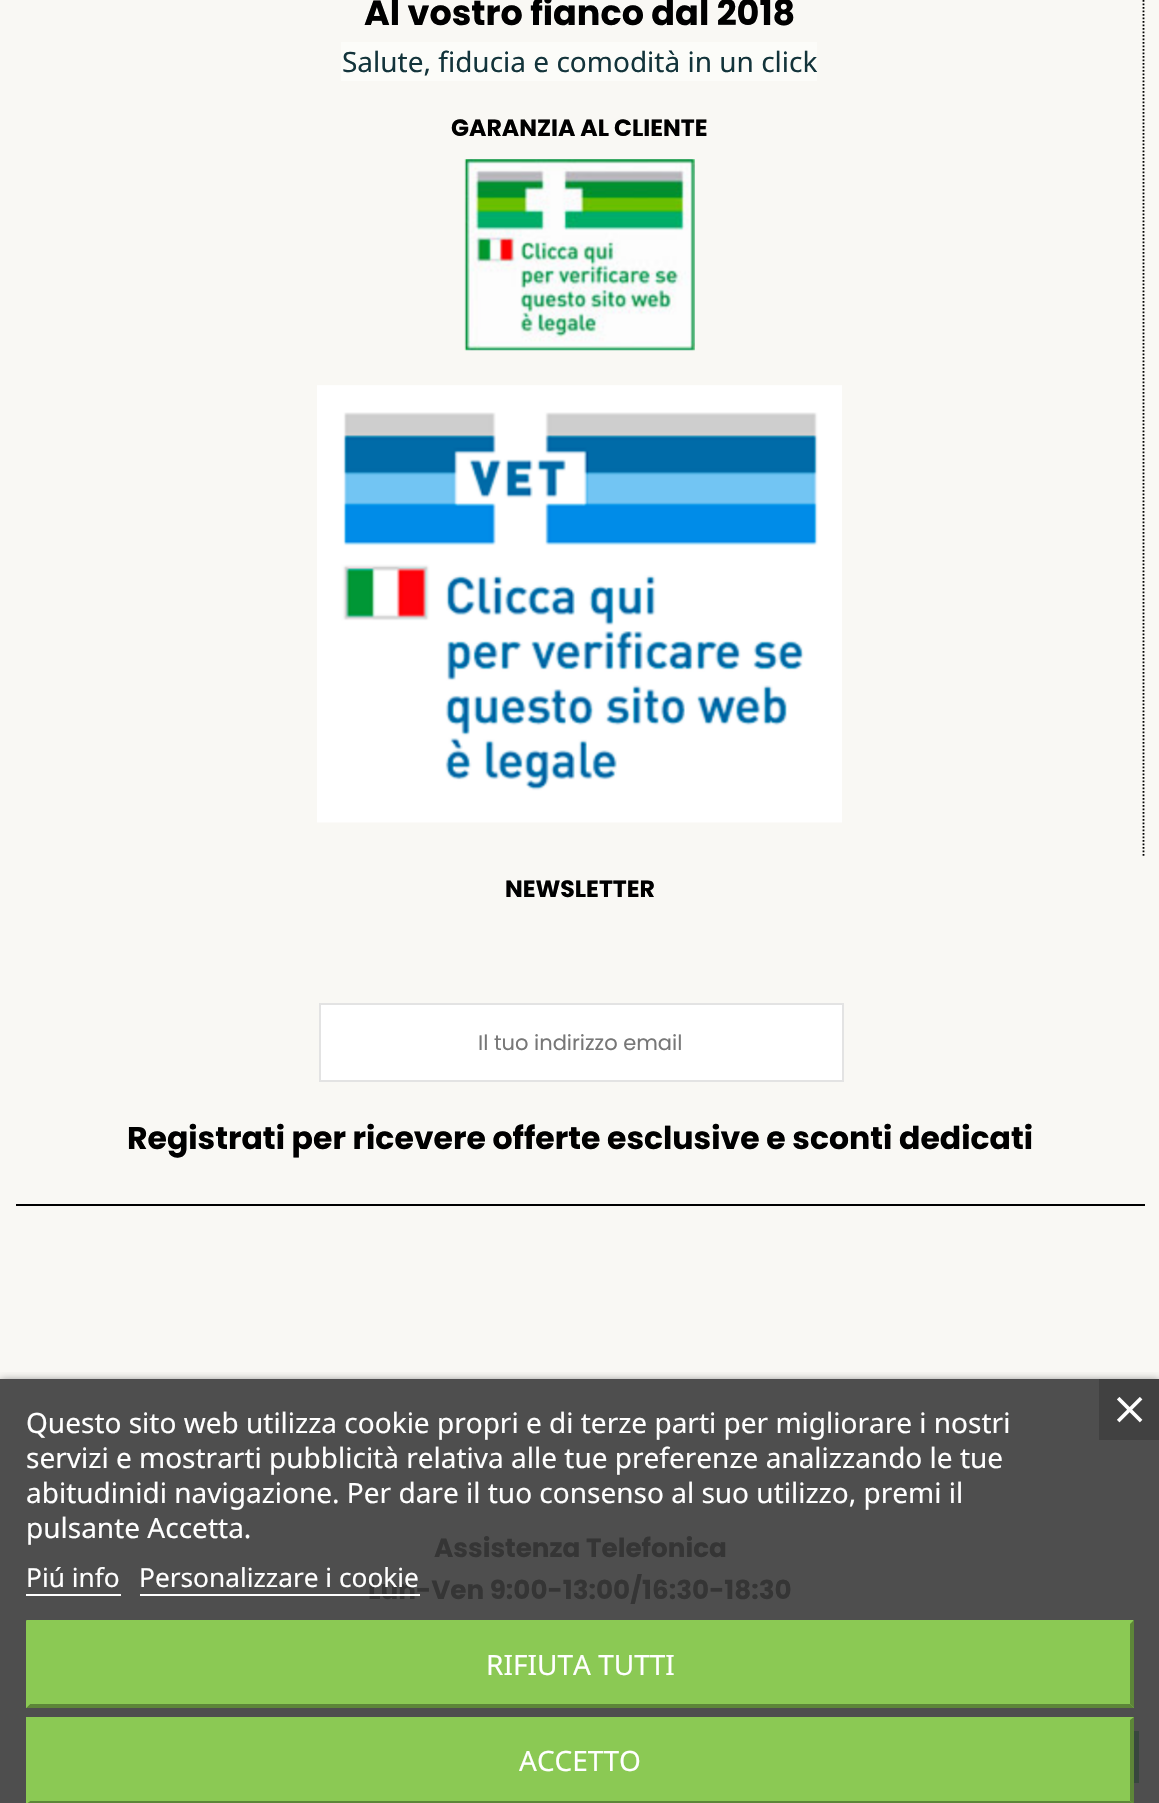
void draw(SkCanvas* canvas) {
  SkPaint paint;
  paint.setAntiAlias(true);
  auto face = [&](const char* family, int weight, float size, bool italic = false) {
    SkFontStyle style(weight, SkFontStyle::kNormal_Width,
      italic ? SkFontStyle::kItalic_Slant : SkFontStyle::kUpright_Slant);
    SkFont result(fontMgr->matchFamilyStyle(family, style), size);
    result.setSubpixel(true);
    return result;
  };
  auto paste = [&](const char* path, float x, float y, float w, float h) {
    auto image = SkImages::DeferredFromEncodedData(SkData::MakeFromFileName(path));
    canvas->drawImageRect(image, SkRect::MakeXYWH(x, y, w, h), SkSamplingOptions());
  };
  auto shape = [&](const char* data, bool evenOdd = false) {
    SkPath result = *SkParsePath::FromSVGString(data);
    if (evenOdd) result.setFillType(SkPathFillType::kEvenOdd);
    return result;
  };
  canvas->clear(0xfff9f8f4);
  paint.setColor(0xff4e4e4e);
  canvas->drawRect(SkRect::MakeXYWH(0, 1379, 1159, 424), paint);
  paint.setStroke(true);
  paint.setStrokeWidth(1.8f);
  paint.setColor(0xff000000);
  paint.setPathEffect(SkDashPathEffect::Make({{1.75f, 1.75f}}, 0));
  canvas->drawPath(shape("M1143.5-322V98"), paint);
  paint.setPathEffect(nullptr);
  paint.setStroke(false);
  paint.setColor(0xfffcfcf9);
  canvas->drawRect(SkRect::MakeXYWH(341, 42, 476, 39), paint);
  paint.setStroke(true);
  paint.setColor(0xff000000);
  paint.setPathEffect(SkDashPathEffect::Make({{1.75f, 1.75f}}, 0));
  canvas->drawPath(shape("M1143.5 98V856"), paint);
  paint.setPathEffect(nullptr);
  paste("img/1.png", 464, 159, 231, 192);
  paste("img/2.png", 317, 385, 525, 438);
  paint.setStroke(false);
  paint.setColor(0xffffffff);
  canvas->drawRect(SkRect::MakeXYWH(320, 1004, 523, 77), paint);
  paint.setStroke(true);
  paint.setStrokeWidth(2);
  paint.setColor(0xffe3e3e3);
  canvas->drawRect(SkRect::MakeXYWH(320, 1004, 523, 77), paint);
  paint.setStroke(false);
  paint.setColor(0xff000000);
  canvas->drawRect(SkRect::MakeXYWH(16, 1204, 1129, 2), paint);
  paint.setColor(0xff38463e);
  canvas->drawRect(SkRect::MakeXYWH(1134, 1731, 5, 52), paint);
  canvas->save();
  canvas->clipRect(SkRect::MakeXYWH(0, 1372, 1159, 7));
  paint.setColor(0xff707070);
  paint.setMaskFilter(SkMaskFilter::MakeBlur(kNormal_SkBlurStyle, 4.5f));
  canvas->drawRect(SkRect::MakeXYWH(0, 1381, 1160, 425), paint);
  paint.setMaskFilter(nullptr);
  canvas->restore();
  paint.setColor(0xffffffff);
  canvas->drawRect(SkRect::MakeXYWH(26, 1594, 95, 2), paint);
  paint.setColor(0xff8bc954);
  canvas->drawRect(SkRect::MakeXYWH(26, 1621, 1108, 87), paint);
  canvas->drawPath(shape("M26 1620H1134L1130 1624H30Z"), paint);
  paint.setColor(0xff5d8638);
  canvas->drawPath(shape("M1134 1620V1708L1130 1704V1624Z"), paint);
  canvas->drawPath(shape("M1134 1708H26L30 1704H1130Z"), paint);
  paint.setColor(0xff8bc954);
  canvas->drawPath(shape("M26 1708V1620L30 1624V1704Z"), paint);
  canvas->drawRect(SkRect::MakeXYWH(26, 1717, 1108, 86), paint);
  paint.setColor(0xff5d8638);
  canvas->drawPath(shape("M1134 1717V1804L1130 1801V1720Z"), paint);
  canvas->drawPath(shape("M1134 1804H26L30 1801H1130Z"), paint);
  paint.setColor(0xff8bc954);
  canvas->drawPath(shape("M26 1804V1717L30 1720V1801Z"), paint);
  paint.setColor(0xff414141);
  canvas->drawRect(SkRect::MakeXYWH(1099, 1379, 60, 61), paint);
  paste("img/3.png", 1117, 1397, 26, 26);
  auto f0 = face("Poppins", 700, 35);
  paint.setColor(0xff000000);
  canvas->drawString("Al vostro fianco dal 2018", 364, 25, f0, paint);
  auto f1 = face("Noto Sans", 400, 28);
  paint.setColor(0xff13343b);
  canvas->drawString("Salute, fiducia e comodità in un click", 342, 72, f1, paint);
  auto f2 = face("Poppins", 700, 23.6f);
  paint.setColor(0xff000000);
  canvas->drawString("GARANZIA AL CLIENTE", 451, 136, f2, paint);
  canvas->drawString("NEWSLETTER", 505, 897, f2, paint);
  auto f3 = face("Poppins", 400, 21);
  paint.setColor(0xff777777);
  canvas->drawString("Il tuo indirizzo email", 478, 1050, f3, paint);
  auto f4 = face("Poppins", 700, 31.5f);
  paint.setColor(0xff000000);
  canvas->drawString("Registrati per ricevere offerte esclusive e sconti dedicati", 127, 1149, f4, paint);
  auto f5 = face("Poppins", 700, 26.25f);
  paint.setColor(0xff353535);
  canvas->drawString("Assistenza Telefonica", 434, 1557, f5, paint);
  canvas->drawString("Lun-Ven 9:00-13:00/16:30-18:30", 368, 1599, f5, paint);
  paint.setColor(0xffffffff);
  {
    const struct { const char* s; float x, y; } items[] = {
      {"Questo sito web utilizza cookie propri e di terze parti per migliorare i nostri", 26, 1433},
      {"servizi e mostrarti pubblicità relativa alle tue preferenze analizzando le tue", 26, 1468},
      {"abitudinidi navigazione. Per dare il tuo consenso al suo utilizzo, premi il", 26, 1503},
      {"pulsante Accetta.", 26, 1538},
    };
    for (auto [s, x, y] : items) {
      canvas->drawString(s, x, y, f1, paint);
    }
  }
  auto f6 = face("Noto Sans", 400, 26.25f);
  canvas->drawString("Piú info", 26, 1587, f6, paint);
  canvas->drawString("Personalizzare i cookie", 139, 1587, f6, paint);
  canvas->drawRect(SkRect::MakeXYWH(140, 1594, 280, 2), paint);
  canvas->drawString("RIFIUTA TUTTI", 486, 1675, f1, paint);
  canvas->drawString("ACCETTO", 519, 1771, f1, paint);
}
